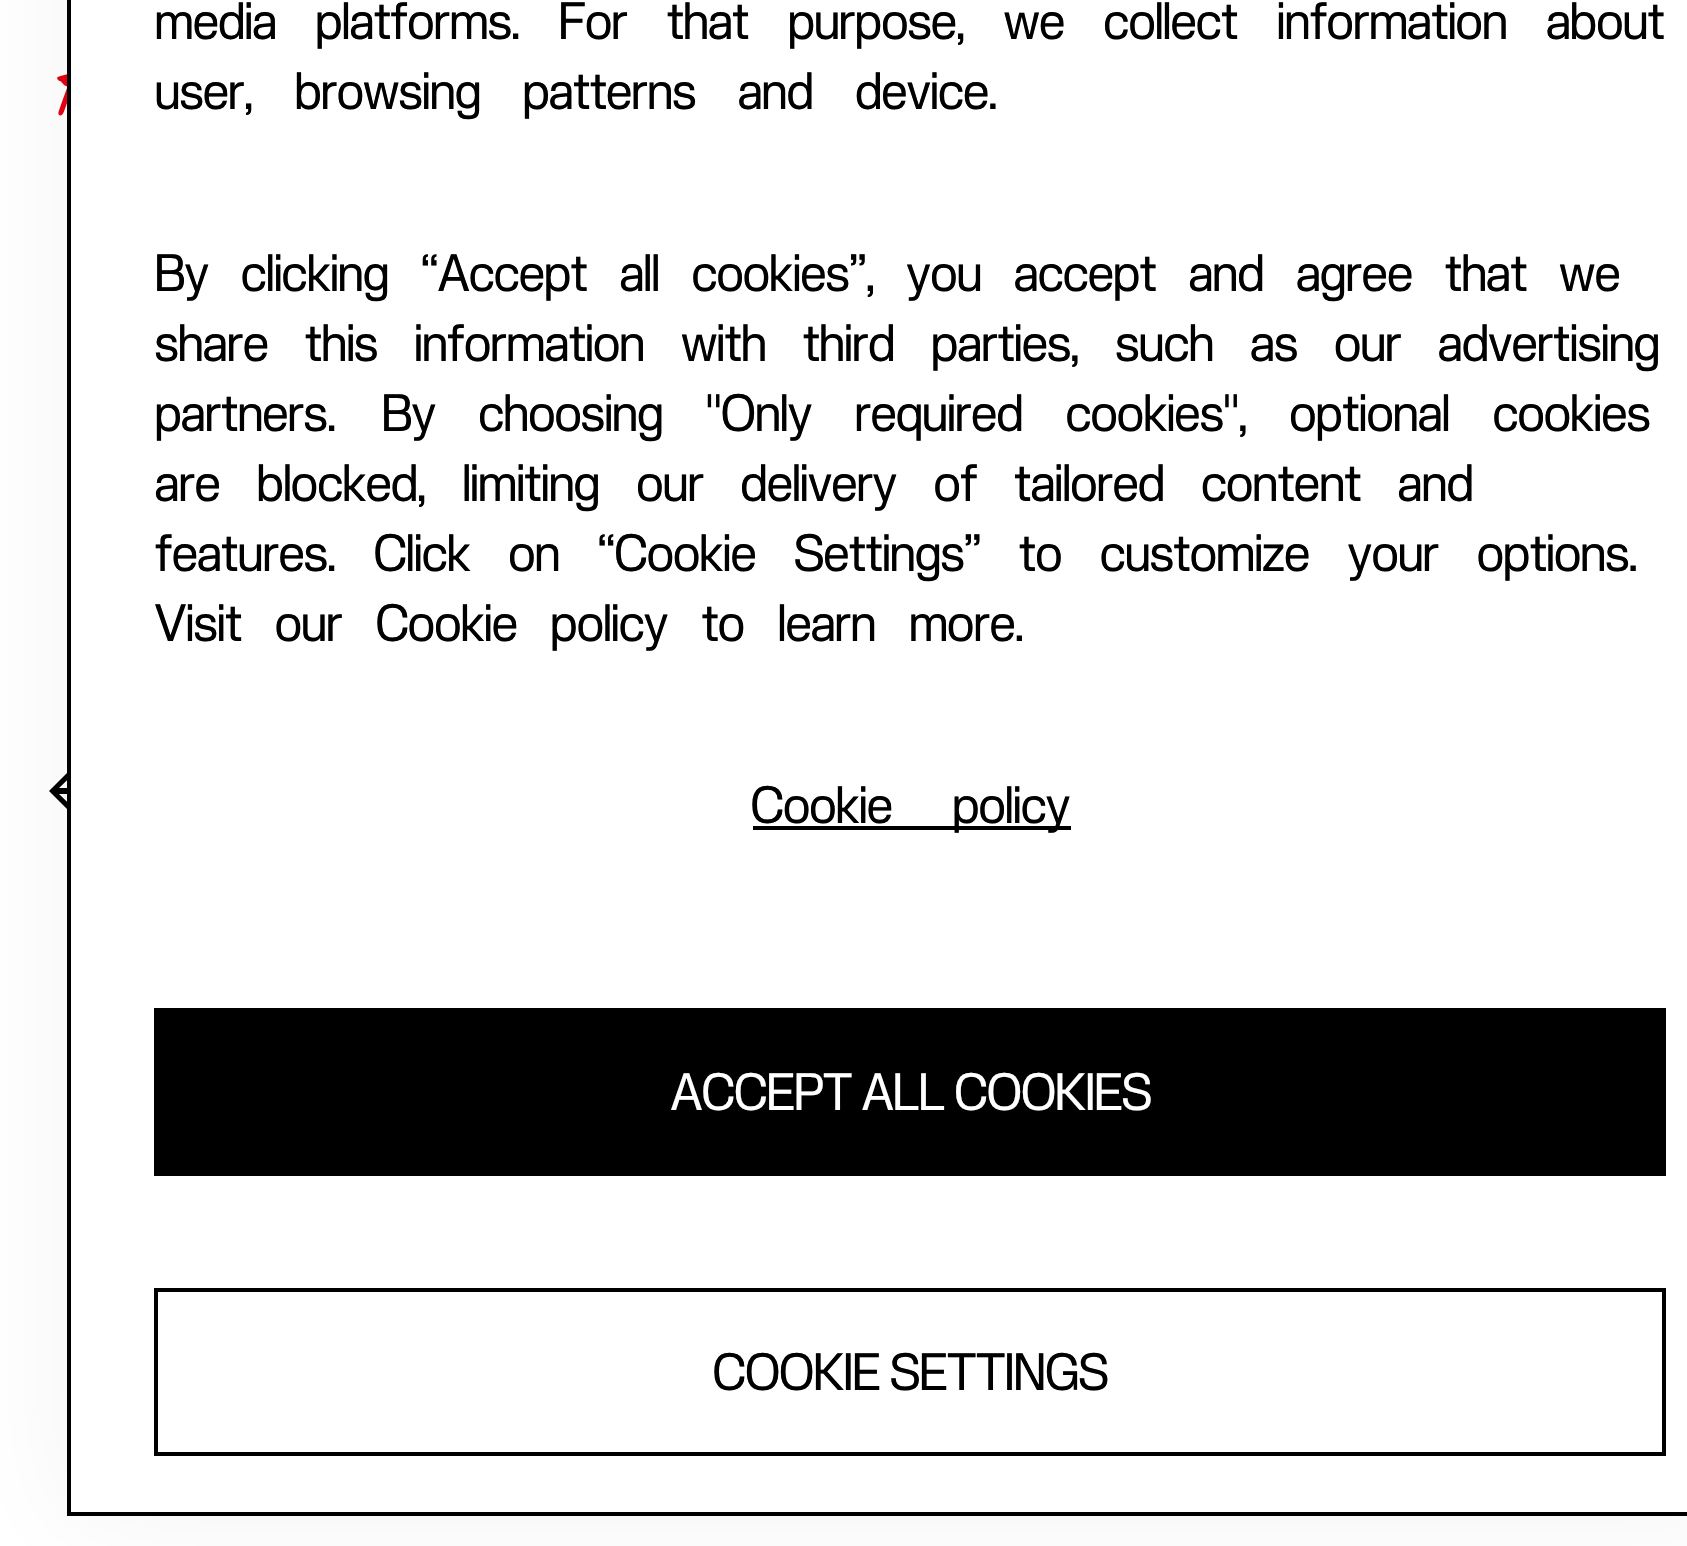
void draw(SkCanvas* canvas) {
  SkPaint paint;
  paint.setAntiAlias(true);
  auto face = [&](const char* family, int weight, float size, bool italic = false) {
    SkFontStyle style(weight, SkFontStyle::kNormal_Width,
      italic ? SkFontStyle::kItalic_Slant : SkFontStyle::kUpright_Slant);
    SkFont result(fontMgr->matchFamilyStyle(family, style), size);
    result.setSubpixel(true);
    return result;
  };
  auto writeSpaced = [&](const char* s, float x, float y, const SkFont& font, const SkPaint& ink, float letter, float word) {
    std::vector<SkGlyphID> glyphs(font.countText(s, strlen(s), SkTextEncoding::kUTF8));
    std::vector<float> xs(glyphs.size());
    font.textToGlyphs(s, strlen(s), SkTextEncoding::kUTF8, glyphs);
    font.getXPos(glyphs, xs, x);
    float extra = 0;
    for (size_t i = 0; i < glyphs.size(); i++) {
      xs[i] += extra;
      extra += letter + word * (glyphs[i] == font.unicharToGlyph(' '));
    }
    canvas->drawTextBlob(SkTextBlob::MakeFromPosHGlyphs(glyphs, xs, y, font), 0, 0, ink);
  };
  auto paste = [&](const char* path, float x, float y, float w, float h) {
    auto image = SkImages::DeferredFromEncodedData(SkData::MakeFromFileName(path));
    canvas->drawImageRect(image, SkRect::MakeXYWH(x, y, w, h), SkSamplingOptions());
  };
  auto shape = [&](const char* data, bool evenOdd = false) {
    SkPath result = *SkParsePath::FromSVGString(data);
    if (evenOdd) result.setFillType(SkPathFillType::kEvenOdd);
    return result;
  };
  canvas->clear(0xffffffff);
  paste("img/1.png", 57, 74, 10, 42);
  paint.setColor(0xff000000);
  canvas->drawPath(shape("M59 788L88 760L84 756L49 791L84 826L88 822L59 794H119V788Z"), paint);
  paint.setColor(0x0d222222);
  paint.setMaskFilter(SkMaskFilter::MakeBlur(kNormal_SkBlurStyle, 56));
  canvas->drawRect(SkRect::MakeXYWH(67, -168, 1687, 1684), paint);
  paint.setMaskFilter(nullptr);
  paint.setColor(0xffffffff);
  canvas->drawRect(SkRect::MakeXYWH(69, -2, 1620, 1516), paint);
  paint.setStroke(true);
  paint.setStrokeWidth(4);
  paint.setColor(0xff000000);
  canvas->drawRect(SkRect::MakeXYWH(69, -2, 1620, 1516), paint);
  paint.setStroke(false);
  canvas->drawRect(SkRect::MakeXYWH(753, 826, 318, 4), paint);
  canvas->drawRect(SkRect::MakeXYWH(154, 1008, 1512, 168), paint);
  paint.setStroke(true);
  canvas->drawRect(SkRect::MakeXYWH(156, 1290, 1508, 164), paint);
  auto f0 = face("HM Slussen", 400, 49);
  paint.setStroke(false);
  writeSpaced("media platforms. For that purpose, we collect information about", 155, 39, f0, paint, 0, 29);
  writeSpaced("user, browsing patterns and device.", 155, 109, f0, paint, 0, 32);
  writeSpaced("By clicking “Accept all cookies”, you accept and agree that we", 155, 291, f0, paint, 0, 22.25f);
  writeSpaced("share this information with third parties, such as our advertising", 155, 361, f0, paint, 0, 26.5f);
  canvas->drawString("partners.", 155, 431, f0, paint);
  writeSpaced("By choosing \"Only required cookies\", optional cookies", 382, 431, f0, paint, 0, 32.75f);
  writeSpaced("are blocked, limiting our delivery of tailored content and", 155, 501, f0, paint, 0, 26.75f);
  writeSpaced("features. Click on “Cookie Settings” to customize your options.", 155, 571, f0, paint, 0, 28);
  writeSpaced("Visit our Cookie policy to learn more.", 155, 641, f0, paint, 0, 23.25f);
  writeSpaced("Cookie policy", 751, 823, f0, paint, 0, 50);
  paint.setColor(0xffffffff);
  canvas->drawString("ACCEPT ALL COOKIES", 671, 1110, f0, paint);
  paint.setColor(0xff000000);
  canvas->drawString("COOKIE SETTINGS", 713, 1390, f0, paint);
}
